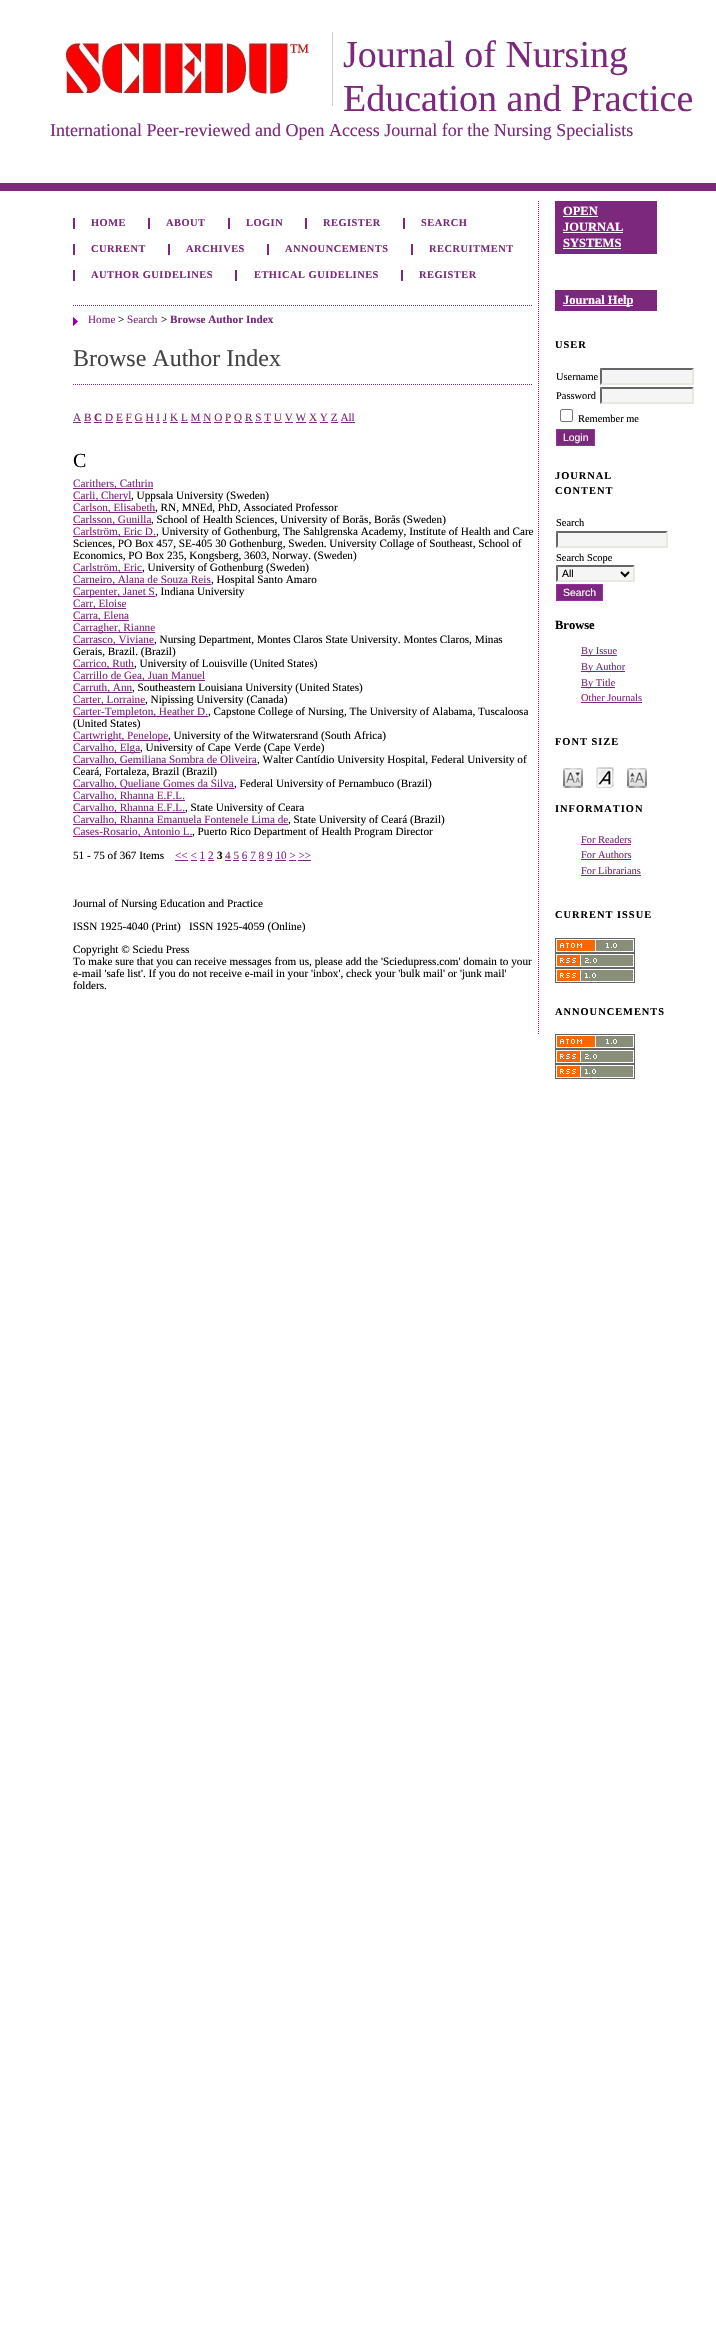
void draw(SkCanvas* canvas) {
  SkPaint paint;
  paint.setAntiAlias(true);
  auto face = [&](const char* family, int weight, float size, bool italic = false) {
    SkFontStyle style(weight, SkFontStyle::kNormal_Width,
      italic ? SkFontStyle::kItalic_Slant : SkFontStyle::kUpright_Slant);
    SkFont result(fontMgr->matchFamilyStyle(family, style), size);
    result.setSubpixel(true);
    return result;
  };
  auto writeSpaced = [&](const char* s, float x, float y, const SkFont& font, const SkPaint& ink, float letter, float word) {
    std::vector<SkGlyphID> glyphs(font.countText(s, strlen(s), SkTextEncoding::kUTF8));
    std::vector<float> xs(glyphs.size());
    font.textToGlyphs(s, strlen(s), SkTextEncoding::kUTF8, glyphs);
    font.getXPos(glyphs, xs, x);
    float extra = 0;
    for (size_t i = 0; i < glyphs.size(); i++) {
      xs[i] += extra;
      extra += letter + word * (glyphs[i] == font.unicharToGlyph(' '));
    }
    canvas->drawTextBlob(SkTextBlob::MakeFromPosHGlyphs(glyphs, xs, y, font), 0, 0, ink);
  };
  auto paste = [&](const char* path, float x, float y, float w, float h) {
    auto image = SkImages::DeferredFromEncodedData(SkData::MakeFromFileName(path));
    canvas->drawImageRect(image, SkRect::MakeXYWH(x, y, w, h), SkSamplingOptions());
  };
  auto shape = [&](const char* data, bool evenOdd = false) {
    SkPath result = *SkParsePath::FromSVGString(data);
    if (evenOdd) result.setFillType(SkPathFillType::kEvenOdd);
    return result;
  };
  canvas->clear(0xffffffff);
  paint.setColor(0xff7c287d);
  canvas->drawRect(SkRect::MakeXYWH(0, 183, 716, 8), paint);
  paint.setColor(0xffcccccc);
  canvas->drawRect(SkRect::MakeXYWH(332, 32, 1, 74), paint);
  paste("img/1.png", 65, 41, 245, 54);
  paint.setStroke(true);
  paint.setStrokeWidth(1);
  paint.setColor(0xff7c287d);
  paint.setPathEffect(SkDashPathEffect::Make({{1, 1}}, 0));
  canvas->drawPath(shape("M538.5 201V1034"), paint);
  paint.setPathEffect(nullptr);
  paint.setStroke(false);
  {
    const struct { float x, y, w, h; SkColor color; } items[] = {
      {73, 218, 2, 11, 0xff7c287d},
      {148, 218, 2, 11, 0xff7c287d},
      {228, 218, 2, 11, 0xff7c287d},
      {305, 218, 2, 11, 0xff7c287d},
      {403, 218, 2, 11, 0xff7c287d},
      {73, 244, 2, 11, 0xff7c287d},
      {168, 244, 2, 11, 0xff7c287d},
      {267, 244, 2, 11, 0xff7c287d},
      {411, 244, 2, 11, 0xff7c287d},
      {73, 270, 2, 11, 0xff7c287d},
      {235, 270, 2, 11, 0xff7c287d},
      {401, 270, 2, 11, 0xff7c287d},
    };
    for (auto [x, y, w, h, color] : items) {
      paint.setColor(color);
      canvas->drawRect(SkRect::MakeXYWH(x, y, w, h), paint);
    }
  }
  paste("img/2.png", 73, 317, 5, 9);
  paint.setStroke(true);
  paint.setPathEffect(SkDashPathEffect::Make({{1, 1}}, 0));
  canvas->drawPath(shape("M73 305.5H533"), paint);
  paint.setPathEffect(nullptr);
  paint.setPathEffect(SkDashPathEffect::Make({{1, 1}}, 0));
  canvas->drawPath(shape("M73 384.5H533"), paint);
  paint.setPathEffect(nullptr);
  paint.setStroke(false);
  {
    const struct { float x, y, w, h; SkColor color; } items[] = {
      {73, 422, 8, 1, 0xff7c287d},
      {94, 422, 8, 1, 0xff7c287d},
      {105, 422, 8, 1, 0xff7c287d},
      {234, 422, 8, 1, 0xff7c287d},
      {84, 422, 7, 1, 0xff7c287d},
      {116, 422, 7, 1, 0xff7c287d},
      {126, 422, 6, 1, 0xff7c287d},
      {135, 422, 8, 1, 0xff7c287d},
      {146, 422, 8, 1, 0xff7c287d},
      {156, 422, 4, 1, 0xff7c287d},
      {163, 422, 4, 1, 0xff7c287d},
      {170, 422, 8, 1, 0xff7c287d},
      {181, 422, 7, 1, 0xff7c287d},
      {191, 422, 10, 1, 0xff7c287d},
      {203, 422, 8, 1, 0xff7c287d},
      {214, 422, 8, 1, 0xff7c287d},
      {225, 422, 6, 1, 0xff7c287d},
      {245, 422, 8, 1, 0xff7c287d},
      {255, 422, 7, 1, 0xff7c287d},
      {264, 422, 7, 1, 0xff7c287d},
      {274, 422, 8, 1, 0xff7c287d},
      {285, 422, 8, 1, 0xff7c287d},
      {296, 422, 10, 1, 0xff7c287d},
      {309, 422, 8, 1, 0xff7c287d},
      {320, 422, 8, 1, 0xff7c287d},
      {331, 422, 7, 1, 0xff7c287d},
      {341, 422, 14, 1, 0xff7c287d},
      {73, 488, 80, 1, 0xff7c287d},
      {73, 500, 58, 1, 0xff7c287d},
      {73, 512, 82, 1, 0xff7c287d},
      {73, 524, 78, 1, 0xff7c287d},
      {73, 536, 83, 1, 0xff7c287d},
      {73, 572, 69, 1, 0xff7c287d},
      {73, 584, 138, 1, 0xff7c287d},
      {73, 596, 82, 1, 0xff7c287d},
      {73, 608, 53, 1, 0xff7c287d},
      {73, 620, 56, 1, 0xff7c287d},
      {73, 632, 82, 1, 0xff7c287d},
      {73, 644, 81, 1, 0xff7c287d},
      {73, 668, 61, 1, 0xff7c287d},
      {73, 680, 132, 1, 0xff7c287d},
      {73, 692, 59, 1, 0xff7c287d},
      {73, 704, 72, 1, 0xff7c287d},
      {73, 716, 135, 1, 0xff7c287d},
      {73, 740, 95, 1, 0xff7c287d},
      {73, 752, 67, 1, 0xff7c287d},
      {73, 764, 184, 1, 0xff7c287d},
      {73, 788, 161, 1, 0xff7c287d},
      {73, 800, 112, 1, 0xff7c287d},
      {73, 812, 112, 1, 0xff7c287d},
      {73, 824, 215, 1, 0xff7c287d},
      {73, 836, 119, 1, 0xff7c287d},
      {175, 860, 13, 1, 0xff7c287d},
      {225, 860, 6, 1, 0xff7c287d},
      {191, 860, 6, 1, 0xff7c287d},
      {200, 860, 5, 1, 0xff7c287d},
      {208, 860, 6, 1, 0xff7c287d},
      {233, 860, 6, 1, 0xff7c287d},
      {242, 860, 5, 1, 0xff7c287d},
      {250, 860, 6, 1, 0xff7c287d},
      {259, 860, 5, 1, 0xff7c287d},
      {267, 860, 5, 1, 0xff7c287d},
      {275, 860, 11, 1, 0xff7c287d},
      {289, 860, 7, 1, 0xff7c287d},
      {298, 860, 13, 1, 0xff7c287d},
      {555, 201, 102, 53, 0xff7c287d},
      {563, 216, 35, 1, 0xffffffff},
      {563, 232, 60, 1, 0xffffffff},
      {563, 248, 58, 1, 0xffffffff},
      {555, 290, 102, 21, 0xff7c287d},
      {563, 305, 70, 1, 0xffffffff},
      {600, 368, 94, 17, 0xfff5f5f5},
    };
    for (auto [x, y, w, h, color] : items) {
      paint.setColor(color);
      canvas->drawRect(SkRect::MakeXYWH(x, y, w, h), paint);
    }
  }
  paint.setColor(0xff666666);
  canvas->drawPath(shape("M600 368H694L692 370H602Z"), paint);
  paint.setColor(0xffe8e8e1);
  canvas->drawPath(shape("M694 368V385L692 383V370Z"), paint);
  canvas->drawPath(shape("M694 385H600L602 383H692Z"), paint);
  paint.setColor(0xff666666);
  canvas->drawPath(shape("M600 385V368L602 370V383Z"), paint);
  paint.setColor(0xfff5f5f5);
  canvas->drawRect(SkRect::MakeXYWH(600, 387, 94, 17), paint);
  paint.setColor(0xff666666);
  canvas->drawPath(shape("M600 387H694L692 389H602Z"), paint);
  paint.setColor(0xffe8e8e1);
  canvas->drawPath(shape("M694 387V404L692 402V389Z"), paint);
  canvas->drawPath(shape("M694 404H600L602 402H692Z"), paint);
  paint.setColor(0xff666666);
  canvas->drawPath(shape("M600 404V387L602 389V402Z"), paint);
  paint.setStroke(true);
  paint.setColor(0xff767676);
  canvas->drawRoundRect(SkRect::MakeXYWH(560.5f, 409.5f, 12, 12), 1.5f, 1.5f, paint);
  paint.setStroke(false);
  paint.setColor(0xff7c287d);
  canvas->drawRect(SkRect::MakeXYWH(556.5f, 429.5f, 38, 16), paint);
  paint.setStroke(true);
  paint.setColor(0xff982fa9);
  canvas->drawRect(SkRect::MakeXYWH(556.5f, 429.5f, 38, 16), paint);
  paint.setStroke(false);
  paint.setColor(0xfff5f5f5);
  canvas->drawRect(SkRect::MakeXYWH(556, 531, 112, 17), paint);
  paint.setColor(0xff666666);
  canvas->drawPath(shape("M556 531H668L666 533H558Z"), paint);
  paint.setColor(0xffe8e8e1);
  canvas->drawPath(shape("M668 531V548L666 546V533Z"), paint);
  canvas->drawPath(shape("M668 548H556L558 546H666Z"), paint);
  paint.setColor(0xff666666);
  canvas->drawPath(shape("M556 548V531L558 533V546Z"), paint);
  paint.setColor(0xfff5f5f5);
  canvas->drawRect(SkRect::MakeXYWH(556, 565, 79, 17), paint);
  paint.setColor(0xff666666);
  canvas->drawPath(shape("M556 565H635L633 567H558Z"), paint);
  paint.setColor(0xffe8e8e1);
  canvas->drawPath(shape("M635 565V582L633 580V567Z"), paint);
  canvas->drawPath(shape("M635 582H556L558 580H633Z"), paint);
  paint.setColor(0xff666666);
  canvas->drawPath(shape("M556 582V565L558 567V580Z"), paint);
  paint.setStroke(true);
  paint.setStrokeWidth(2);
  paint.setColor(0xff000000);
  canvas->drawPath(shape("M621 572L625 576L629 572"), paint);
  paint.setStroke(false);
  paint.setColor(0xff7c287d);
  canvas->drawRect(SkRect::MakeXYWH(556.5f, 584.5f, 46, 16), paint);
  paint.setStroke(true);
  paint.setStrokeWidth(1);
  paint.setColor(0xff982fa9);
  canvas->drawRect(SkRect::MakeXYWH(556.5f, 584.5f, 46, 16), paint);
  paint.setStroke(false);
  {
    const struct { float x, y, w, h; SkColor color; } items[] = {
      {581, 655, 36, 1, 0xff7c287d},
      {581, 671, 44, 1, 0xff7c287d},
      {581, 687, 34, 1, 0xff7c287d},
      {581, 702, 61, 1, 0xff7c287d},
    };
    for (auto [x, y, w, h, color] : items) {
      paint.setColor(color);
      canvas->drawRect(SkRect::MakeXYWH(x, y, w, h), paint);
    }
  }
  paste("img/3.png", 563, 768, 20, 20);
  paste("img/4.png", 596, 767, 18, 21);
  paste("img/5.png", 627, 768, 20, 20);
  {
    const struct { float x, y, w, h; SkColor color; } items[] = {
      {581, 844, 50, 1, 0xff7c287d},
      {581, 859, 50, 1, 0xff7c287d},
      {581, 875, 60, 1, 0xff7c287d},
    };
    for (auto [x, y, w, h, color] : items) {
      paint.setColor(color);
      canvas->drawRect(SkRect::MakeXYWH(x, y, w, h), paint);
    }
  }
  paste("img/6.png", 555, 938, 80, 15);
  paste("img/7.png", 555, 953, 80, 15);
  paste("img/8.png", 555, 968, 80, 15);
  paste("img/6.png", 555, 1034, 80, 15);
  paste("img/7.png", 555, 1049, 80, 15);
  paste("img/8.png", 555, 1064, 80, 15);
  auto f0 = face("Liberation Serif", 400, 38);
  canvas->drawString("Journal of Nursing", 343, 67, f0, paint);
  canvas->drawString("Education and Practice", 343, 111, f0, paint);
  auto f1 = face("Liberation Serif", 400, 18);
  canvas->drawString("International Peer-reviewed and Open Access Journal for the Nursing Specialists", 50, 136, f1, paint);
  auto f2 = face("Liberation Serif", 700, 10.4f);
  {
    const struct { const char* s; float x, y; } items[] = {
      {"HOME", 91, 226},
      {"ABOUT", 166, 226},
      {"LOGIN", 246, 226},
      {"REGISTER", 323, 226},
      {"SEARCH", 421, 226},
      {"CURRENT", 91, 252},
      {"ARCHIVES", 186, 252},
      {"ANNOUNCEMENTS", 285, 252},
      {"RECRUITMENT", 429, 252},
      {"AUTHOR GUIDELINES", 91, 278},
      {"ETHICAL GUIDELINES", 254, 278},
      {"REGISTER", 419, 278},
    };
    for (auto [s, x, y] : items) {
      writeSpaced(s, x, y, f2, paint, 0.5f, 0);
    }
  }
  auto f3 = face("Liberation Serif", 400, 11.2f);
  canvas->drawString("Home", 88, 323, f3, paint);
  paint.setColor(0xff000000);
  canvas->drawString(">", 118, 323, f3, paint);
  paint.setColor(0xff7c287d);
  canvas->drawString("Search", 127, 323, f3, paint);
  paint.setColor(0xff000000);
  canvas->drawString(">", 161, 323, f3, paint);
  auto f4 = face("Liberation Serif", 700, 11.2f);
  paint.setColor(0xff7c287d);
  canvas->drawString("Browse Author Index", 170, 323, f4, paint);
  auto f5 = face("Liberation Serif", 400, 24);
  paint.setColor(0xff444444);
  canvas->drawString("Browse Author Index", 73, 366, f5, paint);
  paint.setColor(0xff7c287d);
  canvas->drawString("A B", 73, 421, f3, paint);
  canvas->drawString("C", 94, 421, f4, paint);
  canvas->drawString("D E F G H I J K L M N O P", 105, 421, f3, paint);
  canvas->drawString("Q R S T U V W X Y Z All", 234, 421, f3, paint);
  auto f6 = face("Liberation Serif", 400, 20);
  paint.setColor(0xff000000);
  canvas->drawString("C", 73, 467, f6, paint);
  paint.setColor(0xff7c287d);
  canvas->drawString("Carithers, Cathrin", 73, 487, f3, paint);
  canvas->drawString("Carli, Cheryl", 73, 499, f3, paint);
  paint.setColor(0xff000000);
  canvas->drawString(", Uppsala University (Sweden)", 131, 499, f3, paint);
  paint.setColor(0xff7c287d);
  canvas->drawString("Carlson, Elisabeth", 73, 511, f3, paint);
  paint.setColor(0xff000000);
  canvas->drawString(", RN, MNEd, PhD, Associated Professor", 155, 511, f3, paint);
  paint.setColor(0xff7c287d);
  canvas->drawString("Carlsson, Gunilla", 73, 523, f3, paint);
  paint.setColor(0xff000000);
  canvas->drawString(", School of Health Sciences, University of Borås, Borås (Sweden)", 151, 523, f3, paint);
  paint.setColor(0xff7c287d);
  canvas->drawString("Carlström, Eric D.", 73, 535, f3, paint);
  paint.setColor(0xff000000);
  {
    const struct { const char* s; float x, y; } items[] = {
      {", University of Gothenburg, The Sahlgrenska Academy, Institute of Health and Care", 156, 535},
      {"Sciences, PO Box 457, SE-405 30 Gothenburg, Sweden. University Collage of Southeast, School of", 73, 547},
      {"Economics, PO Box 235, Kongsberg, 3603, Norway. (Sweden)", 73, 559},
    };
    for (auto [s, x, y] : items) {
      canvas->drawString(s, x, y, f3, paint);
    }
  }
  paint.setColor(0xff7c287d);
  canvas->drawString("Carlström, Eric", 73, 571, f3, paint);
  paint.setColor(0xff000000);
  canvas->drawString(", University of Gothenburg (Sweden)", 142, 571, f3, paint);
  paint.setColor(0xff7c287d);
  canvas->drawString("Carneiro, Alana de Souza Reis", 73, 583, f3, paint);
  paint.setColor(0xff000000);
  canvas->drawString(", Hospital Santo Amaro", 211, 583, f3, paint);
  paint.setColor(0xff7c287d);
  canvas->drawString("Carpenter, Janet S", 73, 595, f3, paint);
  paint.setColor(0xff000000);
  canvas->drawString(", Indiana University", 155, 595, f3, paint);
  paint.setColor(0xff7c287d);
  {
    const struct { const char* s; float x, y; } items[] = {
      {"Carr, Eloise", 73, 607},
      {"Carra, Elena", 73, 619},
      {"Carragher, Rianne", 73, 631},
      {"Carrasco, Viviane", 73, 643},
    };
    for (auto [s, x, y] : items) {
      canvas->drawString(s, x, y, f3, paint);
    }
  }
  paint.setColor(0xff000000);
  canvas->drawString(", Nursing Department, Montes Claros State University. Montes Claros, Minas", 154, 643, f3, paint);
  canvas->drawString("Gerais, Brazil. (Brazil)", 73, 655, f3, paint);
  paint.setColor(0xff7c287d);
  canvas->drawString("Carrico, Ruth", 73, 667, f3, paint);
  paint.setColor(0xff000000);
  canvas->drawString(", University of Louisville (United States)", 134, 667, f3, paint);
  paint.setColor(0xff7c287d);
  canvas->drawString("Carrillo de Gea, Juan Manuel", 73, 679, f3, paint);
  canvas->drawString("Carruth, Ann", 73, 691, f3, paint);
  paint.setColor(0xff000000);
  canvas->drawString(", Southeastern Louisiana University (United States)", 132, 691, f3, paint);
  paint.setColor(0xff7c287d);
  canvas->drawString("Carter, Lorraine", 73, 703, f3, paint);
  paint.setColor(0xff000000);
  canvas->drawString(", Nipissing University (Canada)", 145, 703, f3, paint);
  paint.setColor(0xff7c287d);
  canvas->drawString("Carter-Templeton, Heather D.", 73, 715, f3, paint);
  paint.setColor(0xff000000);
  canvas->drawString(", Capstone College of Nursing, The University of Alabama, Tuscaloosa", 208, 715, f3, paint);
  canvas->drawString("(United States)", 73, 727, f3, paint);
  paint.setColor(0xff7c287d);
  canvas->drawString("Cartwright, Penelope", 73, 739, f3, paint);
  paint.setColor(0xff000000);
  canvas->drawString(", University of the Witwatersrand (South Africa)", 168, 739, f3, paint);
  paint.setColor(0xff7c287d);
  canvas->drawString("Carvalho, Elga", 73, 751, f3, paint);
  paint.setColor(0xff000000);
  canvas->drawString(", University of Cape Verde (Cape Verde)", 140, 751, f3, paint);
  paint.setColor(0xff7c287d);
  canvas->drawString("Carvalho, Gemiliana Sombra de Oliveira", 73, 763, f3, paint);
  paint.setColor(0xff000000);
  canvas->drawString(", Walter Cantídio University Hospital, Federal University of", 257, 763, f3, paint);
  canvas->drawString("Ceará, Fortaleza, Brazil (Brazil)", 73, 775, f3, paint);
  paint.setColor(0xff7c287d);
  canvas->drawString("Carvalho, Queliane Gomes da Silva", 73, 787, f3, paint);
  paint.setColor(0xff000000);
  canvas->drawString(", Federal University of Pernambuco (Brazil)", 234, 787, f3, paint);
  paint.setColor(0xff7c287d);
  canvas->drawString("Carvalho, Rhanna E.F.L.", 73, 799, f3, paint);
  canvas->drawString("Carvalho, Rhanna E.F.L.", 73, 811, f3, paint);
  paint.setColor(0xff000000);
  canvas->drawString(", State University of Ceara", 185, 811, f3, paint);
  paint.setColor(0xff7c287d);
  canvas->drawString("Carvalho, Rhanna Emanuela Fontenele Lima de", 73, 823, f3, paint);
  paint.setColor(0xff000000);
  canvas->drawString(", State University of Ceará (Brazil)", 288, 823, f3, paint);
  paint.setColor(0xff7c287d);
  canvas->drawString("Cases-Rosario, Antonio L.", 73, 835, f3, paint);
  paint.setColor(0xff000000);
  canvas->drawString(", Puerto Rico Department of Health Program Director", 192, 835, f3, paint);
  canvas->drawString("51 - 75 of 367 Items", 73, 859, f3, paint);
  paint.setColor(0xff7c287d);
  canvas->drawString("<< < 1 2", 175, 859, f3, paint);
  paint.setColor(0xff000000);
  canvas->drawString("3", 217, 859, f4, paint);
  paint.setColor(0xff7c287d);
  canvas->drawString("4 5 6 7 8 9 10 > >>", 225, 859, f3, paint);
  paint.setColor(0xff000000);
  {
    const struct { const char* s; float x, y; } items[] = {
      {"Journal of Nursing Education and Practice", 73, 907},
      {"ISSN 1925-4040 (Print)   ISSN 1925-4059 (Online)", 73, 930},
      {"Copyright © Sciedu Press", 73, 953},
      {"To make sure that you can receive messages from us, please add the 'Sciedupress.com' domain to your", 73, 965},
      {"e-mail 'safe list'. If you do not receive e-mail in your 'inbox', check your 'bulk mail' or 'junk mail'", 73, 977},
      {"folders.", 73, 989},
    };
    for (auto [s, x, y] : items) {
      canvas->drawString(s, x, y, f3, paint);
    }
  }
  auto f7 = face("Liberation Serif", 700, 12.5f);
  paint.setColor(0xffffffff);
  {
    const struct { const char* s; float x, y; } items[] = {
      {"OPEN", 563, 215},
      {"JOURNAL", 563, 231},
      {"SYSTEMS", 563, 247},
      {"Journal Help", 563, 304},
    };
    for (auto [s, x, y] : items) {
      canvas->drawString(s, x, y, f7, paint);
    }
  }
  paint.setColor(0xff000000);
  writeSpaced("USER", 555, 348, f2, paint, 1, 0);
  auto f8 = face("Liberation Serif", 400, 10.4f);
  {
    const struct { const char* s; float x, y; } items[] = {
      {"Username", 556, 380},
      {"Password", 556, 399},
      {"Remember me", 578, 422},
    };
    for (auto [s, x, y] : items) {
      canvas->drawString(s, x, y, f8, paint);
    }
  }
  auto f9 = face("Liberation Sans", 400, 10.4f);
  paint.setColor(0xffffffff);
  canvas->drawString("Login", 563, 441, f9, paint);
  paint.setColor(0xff000000);
  writeSpaced("JOURNAL", 555, 479, f2, paint, 1, 0);
  writeSpaced("CONTENT", 555, 494, f2, paint, 1, 0);
  canvas->drawString("Search", 556, 526, f8, paint);
  canvas->drawString("Search Scope", 556, 561, f8, paint);
  canvas->drawString("All", 562, 577, f9, paint);
  paint.setColor(0xffffffff);
  canvas->drawString("Search", 563, 596, f9, paint);
  paint.setColor(0xff000000);
  canvas->drawString("Browse", 555, 629, f7, paint);
  paint.setColor(0xff7c287d);
  {
    const struct { const char* s; float x, y; } items[] = {
      {"By Issue", 581, 654},
      {"By Author", 581, 670},
      {"By Title", 581, 686},
      {"Other Journals", 581, 701},
    };
    for (auto [s, x, y] : items) {
      canvas->drawString(s, x, y, f8, paint);
    }
  }
  paint.setColor(0xff000000);
  writeSpaced("FONT SIZE", 555, 745, f2, paint, 1, 0);
  writeSpaced("INFORMATION", 555, 812, f2, paint, 1, 0);
  paint.setColor(0xff7c287d);
  {
    const struct { const char* s; float x, y; } items[] = {
      {"For Readers", 581, 843},
      {"For Authors", 581, 858},
      {"For Librarians", 581, 874},
    };
    for (auto [s, x, y] : items) {
      canvas->drawString(s, x, y, f8, paint);
    }
  }
  paint.setColor(0xff000000);
  writeSpaced("CURRENT ISSUE", 555, 918, f2, paint, 1, 0);
  writeSpaced("ANNOUNCEMENTS", 555, 1015, f2, paint, 1, 0);
}
